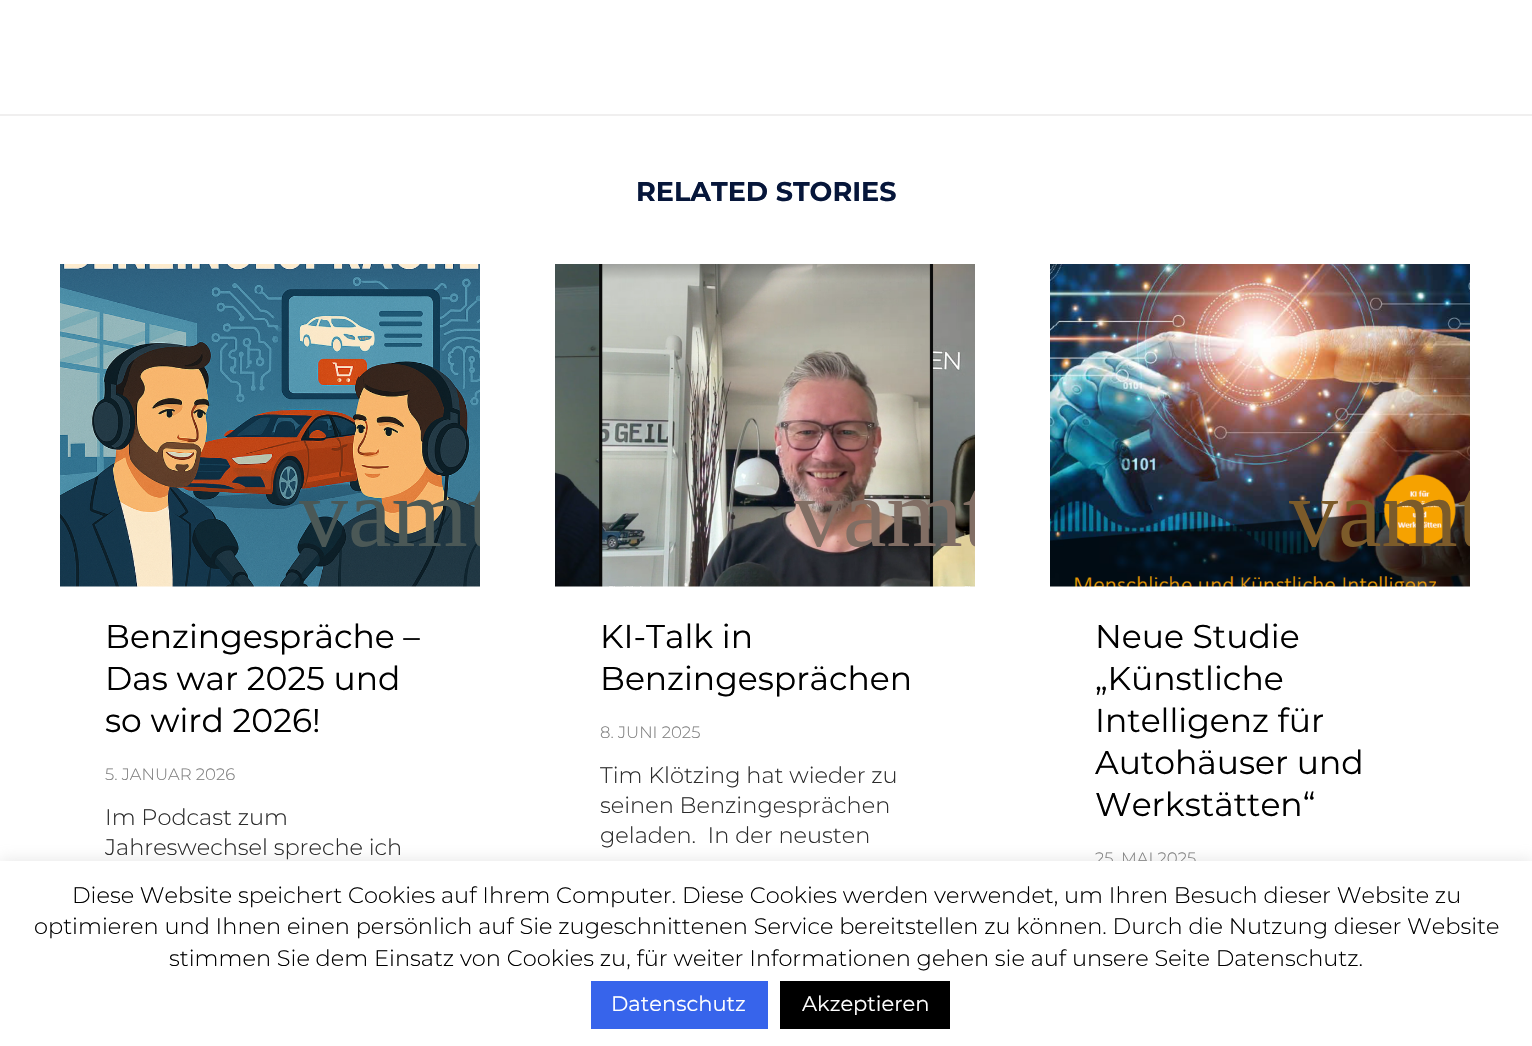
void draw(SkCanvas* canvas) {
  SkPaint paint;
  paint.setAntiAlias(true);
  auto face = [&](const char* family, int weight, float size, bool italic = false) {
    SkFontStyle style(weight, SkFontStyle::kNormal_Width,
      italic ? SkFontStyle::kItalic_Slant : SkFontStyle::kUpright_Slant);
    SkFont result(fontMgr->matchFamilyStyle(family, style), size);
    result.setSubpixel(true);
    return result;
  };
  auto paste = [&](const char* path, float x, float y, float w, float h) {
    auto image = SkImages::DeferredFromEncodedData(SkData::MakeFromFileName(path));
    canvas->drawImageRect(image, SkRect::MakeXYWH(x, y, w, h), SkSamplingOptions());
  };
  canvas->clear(0xffffffff);
  paint.setColor(0xfff0efef);
  canvas->drawRect(SkRect::MakeXYWH(0, 114, 1532, 2), paint);
  paste("img/1.png", 60, 264, 420, 323);
  paste("img/2.png", 555, 264, 420, 323);
  paste("img/3.png", 1050, 264, 420, 323);
  paint.setColor(0x4dacabab);
  paint.setMaskFilter(SkMaskFilter::MakeBlur(kNormal_SkBlurStyle, 7.5f));
  canvas->drawRect(SkRect::MakeXYWH(0, 860, 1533, 186), paint);
  paint.setMaskFilter(nullptr);
  auto f0 = face("Montserrat", 700, 27);
  paint.setColor(0xff06163a);
  canvas->drawString("RELATED STORIES", 636, 201, f0, paint);
  canvas->save();
  canvas->clipRect(SkRect::MakeXYWH(60, 264, 420, 323));
  auto f1 = face("Liberation Serif", 400, 98);
  paint.setColor(0xff4b5856);
  canvas->drawString("vamt", 299, 546, f1, paint);
  canvas->restore();
  auto f2 = face("Montserrat", 400, 33);
  paint.setColor(0xff000000);
  {
    const struct { const char* s; float x, y; } items[] = {
      {"Benzingespräche –", 105, 648},
      {"Das war 2025 und", 105, 690},
      {"so wird 2026!", 105, 732},
    };
    for (auto [s, x, y] : items) {
      canvas->drawString(s, x, y, f2, paint);
    }
  }
  auto f3 = face("Montserrat", 300, 16.5f);
  paint.setColor(0xff808080);
  canvas->drawString("5. JANUAR 2026", 105, 780, f3, paint);
  auto f4 = face("Montserrat", 300, 22.5f);
  paint.setColor(0xff2c2c2c);
  canvas->drawString("Im Podcast zum", 105, 825, f4, paint);
  canvas->drawString("Jahreswechsel spreche ich", 105, 855, f4, paint);
  canvas->save();
  canvas->clipRect(SkRect::MakeXYWH(555, 264, 420, 323));
  paint.setColor(0xff816e64);
  canvas->drawString("vamt", 794, 546, f1, paint);
  canvas->restore();
  paint.setColor(0xff000000);
  canvas->drawString("KI-Talk in", 600, 648, f2, paint);
  canvas->drawString("Benzingesprächen", 600, 690, f2, paint);
  paint.setColor(0xff808080);
  canvas->drawString("8. JUNI 2025", 600, 738, f3, paint);
  paint.setColor(0xff2c2c2c);
  {
    const struct { const char* s; float x, y; } items[] = {
      {"Tim Klötzing hat wieder zu", 600, 783},
      {"seinen Benzingesprächen", 600, 813},
      {"geladen.  In der neusten", 600, 843},
    };
    for (auto [s, x, y] : items) {
      canvas->drawString(s, x, y, f4, paint);
    }
  }
  canvas->save();
  canvas->clipRect(SkRect::MakeXYWH(1050, 264, 420, 323));
  paint.setColor(0xff7c5b2a);
  canvas->drawString("vamt", 1289, 546, f1, paint);
  canvas->restore();
  paint.setColor(0xff000000);
  {
    const struct { const char* s; float x, y; } items[] = {
      {"Neue Studie", 1095, 648},
      {"„Künstliche", 1095, 690},
      {"Intelligenz für", 1095, 732},
      {"Autohäuser und", 1095, 774},
      {"Werkstätten“", 1095, 816},
    };
    for (auto [s, x, y] : items) {
      canvas->drawString(s, x, y, f2, paint);
    }
  }
  paint.setColor(0xff808080);
  canvas->drawString("25. MAI 2025", 1095, 864, f3, paint);
  paint.setColor(0xffffffff);
  canvas->drawRect(SkRect::MakeXYWH(0, 861, 1532, 185), paint);
  paint.setColor(0xff000000);
  {
    const struct { const char* s; float x, y; } items[] = {
      {"Diese Website speichert Cookies auf Ihrem Computer. Diese Cookies werden verwendet, um Ihren Besuch dieser Website zu", 72, 903},
      {"optimieren und Ihnen einen persönlich auf Sie zugeschnittenen Service bereitstellen zu können. Durch die Nutzung dieser Website", 34, 934},
      {"stimmen Sie dem Einsatz von Cookies zu, für weiter Informationen gehen sie auf unsere Seite Datenschutz.", 169, 966},
    };
    for (auto [s, x, y] : items) {
      canvas->drawString(s, x, y, f4, paint);
    }
  }
  paint.setColor(0xff3764eb);
  canvas->drawRect(SkRect::MakeXYWH(591, 981, 177, 48), paint);
  auto f5 = face("Montserrat", 400, 21);
  paint.setColor(0xffffffff);
  canvas->drawString("Datenschutz", 611, 1011, f5, paint);
  paint.setColor(0xff000000);
  canvas->drawRect(SkRect::MakeXYWH(780, 981, 170, 48), paint);
  paint.setColor(0xffffffff);
  canvas->drawString("Akzeptieren", 802, 1011, f5, paint);
}
